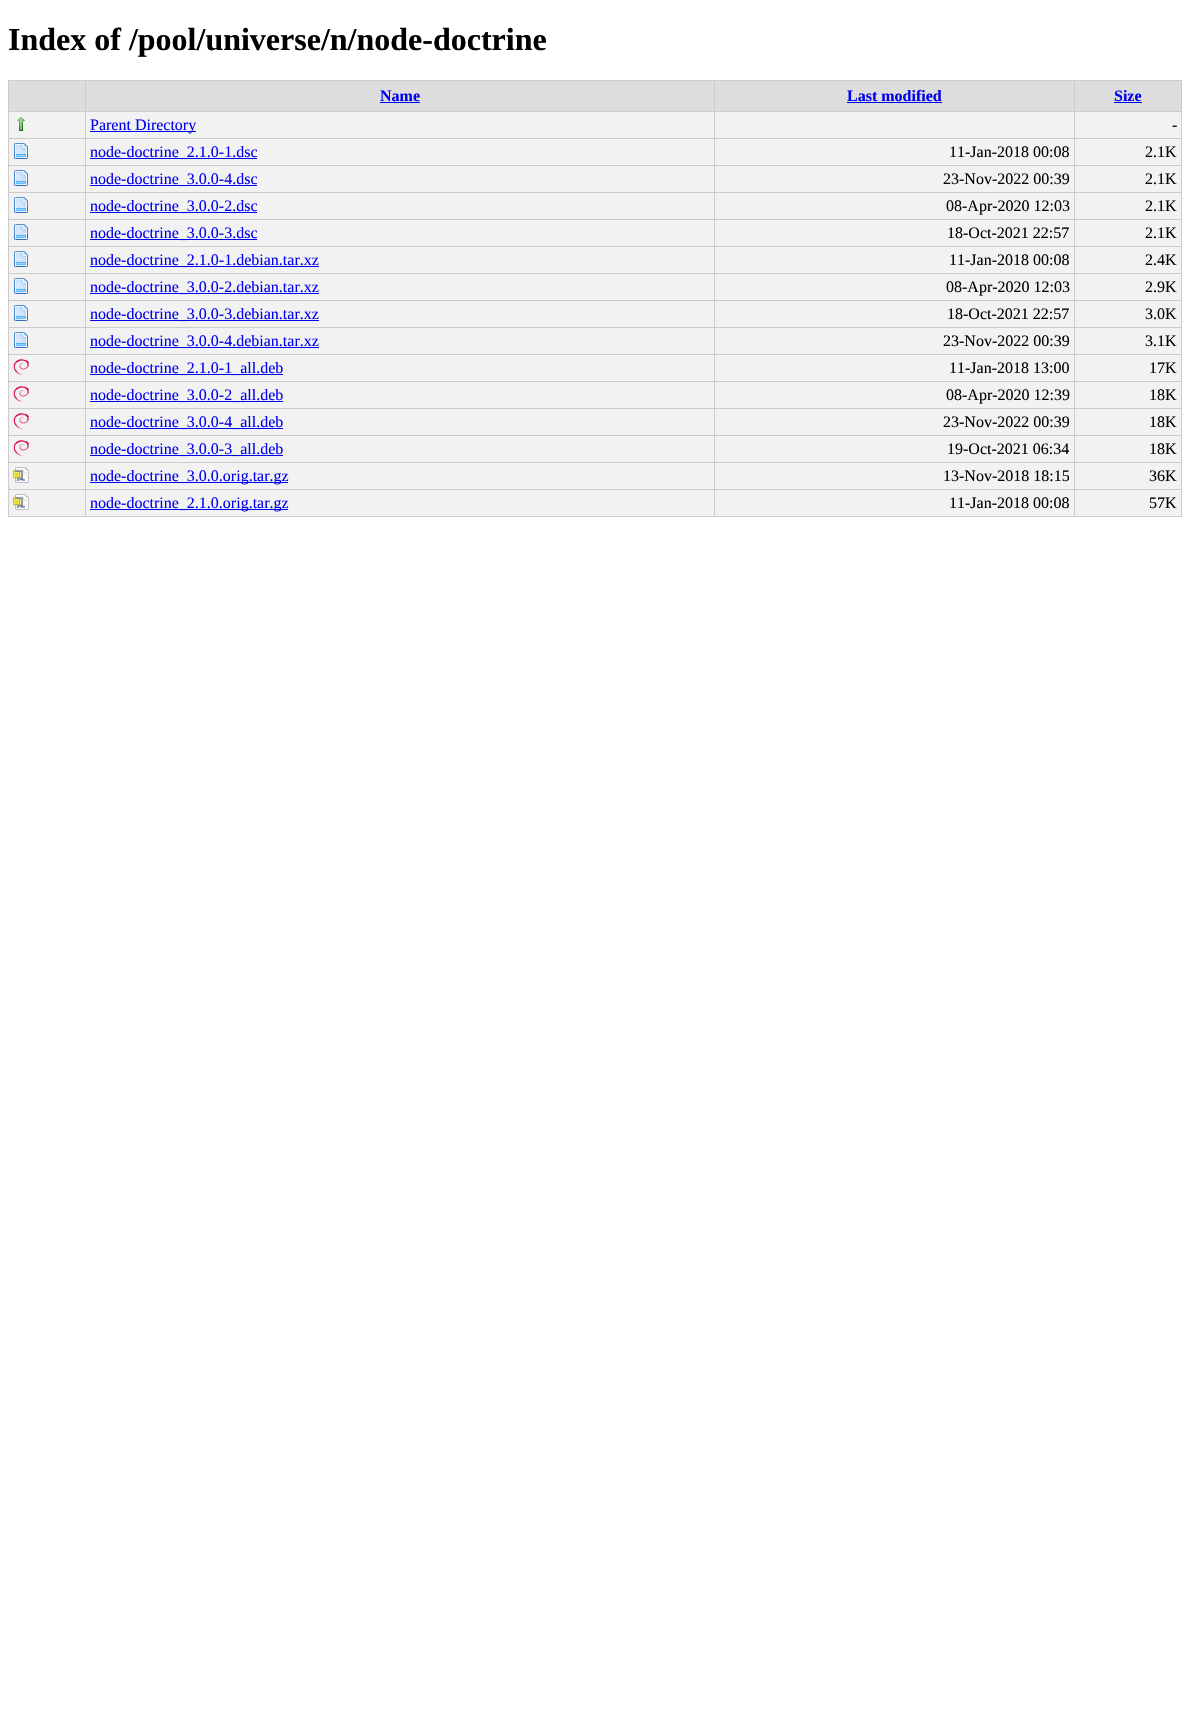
void draw(SkCanvas* canvas) {
  SkPaint paint;
  paint.setAntiAlias(true);
  auto face = [&](const char* family, int weight, float size, bool italic = false) {
    SkFontStyle style(weight, SkFontStyle::kNormal_Width,
      italic ? SkFontStyle::kItalic_Slant : SkFontStyle::kUpright_Slant);
    SkFont result(fontMgr->matchFamilyStyle(family, style), size);
    result.setSubpixel(true);
    return result;
  };
  auto paste = [&](const char* path, float x, float y, float w, float h) {
    auto image = SkImages::DeferredFromEncodedData(SkData::MakeFromFileName(path));
    canvas->drawImageRect(image, SkRect::MakeXYWH(x, y, w, h), SkSamplingOptions());
  };
  canvas->clear(0xffffffff);
  {
    const struct { float x, y, w, h; SkColor color; } items[] = {
      {9, 81, 76, 30, 0xffdddddd},
      {1074, 80, 108, 1, 0xffcccccc},
      {1074, 111, 108, 1, 0xffcccccc},
      {9, 112, 1172, 26, 0xfff2f2f2},
      {1074, 138, 108, 1, 0xffcccccc},
      {9, 139, 1172, 26, 0xfff2f2f2},
      {1074, 165, 108, 1, 0xffcccccc},
      {9, 166, 1172, 26, 0xfff2f2f2},
      {1074, 192, 108, 1, 0xffcccccc},
      {9, 193, 1172, 26, 0xfff2f2f2},
      {1074, 219, 108, 1, 0xffcccccc},
      {9, 220, 1172, 26, 0xfff2f2f2},
      {1074, 246, 108, 1, 0xffcccccc},
      {9, 247, 1172, 26, 0xfff2f2f2},
      {1074, 273, 108, 1, 0xffcccccc},
      {9, 274, 1172, 26, 0xfff2f2f2},
      {1074, 300, 108, 1, 0xffcccccc},
      {9, 301, 1172, 26, 0xfff2f2f2},
      {1074, 327, 108, 1, 0xffcccccc},
      {9, 328, 1172, 26, 0xfff2f2f2},
      {1074, 354, 108, 1, 0xffcccccc},
      {9, 355, 1172, 26, 0xfff2f2f2},
      {1074, 381, 108, 1, 0xffcccccc},
      {9, 382, 1172, 26, 0xfff2f2f2},
      {1074, 408, 108, 1, 0xffcccccc},
      {9, 409, 1172, 26, 0xfff2f2f2},
      {1074, 435, 108, 1, 0xffcccccc},
      {9, 436, 1172, 26, 0xfff2f2f2},
      {1074, 462, 108, 1, 0xffcccccc},
      {9, 463, 1172, 26, 0xfff2f2f2},
      {1074, 489, 108, 1, 0xffcccccc},
      {9, 490, 1172, 26, 0xfff2f2f2},
      {1181, 489, 1, 28, 0xffcccccc},
      {1074, 516, 108, 1, 0xffcccccc},
      {1074, 489, 1, 28, 0xffcccccc},
      {714, 489, 361, 1, 0xffcccccc},
      {1074, 462, 1, 28, 0xffcccccc},
      {714, 462, 361, 1, 0xffcccccc},
      {1074, 435, 1, 28, 0xffcccccc},
      {714, 435, 361, 1, 0xffcccccc},
      {1074, 408, 1, 28, 0xffcccccc},
      {714, 408, 361, 1, 0xffcccccc},
      {1074, 381, 1, 28, 0xffcccccc},
      {714, 381, 361, 1, 0xffcccccc},
      {1074, 354, 1, 28, 0xffcccccc},
      {714, 354, 361, 1, 0xffcccccc},
      {1074, 327, 1, 28, 0xffcccccc},
      {714, 327, 361, 1, 0xffcccccc},
      {1074, 300, 1, 28, 0xffcccccc},
      {714, 300, 361, 1, 0xffcccccc},
      {1074, 273, 1, 28, 0xffcccccc},
      {714, 273, 361, 1, 0xffcccccc},
      {1074, 246, 1, 28, 0xffcccccc},
      {714, 246, 361, 1, 0xffcccccc},
      {1074, 219, 1, 28, 0xffcccccc},
      {714, 219, 361, 1, 0xffcccccc},
      {1074, 192, 1, 28, 0xffcccccc},
      {714, 192, 361, 1, 0xffcccccc},
      {1074, 165, 1, 28, 0xffcccccc},
      {714, 165, 361, 1, 0xffcccccc},
      {1074, 138, 1, 28, 0xffcccccc},
      {714, 138, 361, 1, 0xffcccccc},
      {1074, 111, 1, 28, 0xffcccccc},
      {714, 111, 361, 1, 0xffcccccc},
      {1074, 80, 1, 32, 0xffcccccc},
      {714, 80, 361, 1, 0xffcccccc},
      {714, 516, 361, 1, 0xffcccccc},
      {714, 489, 1, 28, 0xffcccccc},
      {85, 489, 630, 1, 0xffcccccc},
      {714, 462, 1, 28, 0xffcccccc},
      {85, 462, 630, 1, 0xffcccccc},
      {714, 435, 1, 28, 0xffcccccc},
      {85, 435, 630, 1, 0xffcccccc},
      {714, 408, 1, 28, 0xffcccccc},
      {85, 408, 630, 1, 0xffcccccc},
      {714, 381, 1, 28, 0xffcccccc},
      {85, 381, 630, 1, 0xffcccccc},
      {714, 354, 1, 28, 0xffcccccc},
      {85, 354, 630, 1, 0xffcccccc},
      {714, 327, 1, 28, 0xffcccccc},
      {85, 327, 630, 1, 0xffcccccc},
      {714, 300, 1, 28, 0xffcccccc},
      {85, 300, 630, 1, 0xffcccccc},
      {714, 273, 1, 28, 0xffcccccc},
      {85, 273, 630, 1, 0xffcccccc},
      {714, 246, 1, 28, 0xffcccccc},
      {85, 246, 630, 1, 0xffcccccc},
      {714, 219, 1, 28, 0xffcccccc},
      {85, 219, 630, 1, 0xffcccccc},
      {714, 192, 1, 28, 0xffcccccc},
      {85, 192, 630, 1, 0xffcccccc},
      {714, 165, 1, 28, 0xffcccccc},
      {85, 165, 630, 1, 0xffcccccc},
      {714, 138, 1, 28, 0xffcccccc},
      {85, 138, 630, 1, 0xffcccccc},
      {714, 111, 1, 28, 0xffcccccc},
      {85, 111, 630, 1, 0xffcccccc},
      {714, 80, 1, 32, 0xffcccccc},
      {85, 80, 630, 1, 0xffcccccc},
      {85, 516, 630, 1, 0xffcccccc},
      {85, 489, 1, 28, 0xffcccccc},
      {8, 489, 78, 1, 0xffcccccc},
      {85, 462, 1, 28, 0xffcccccc},
      {8, 462, 78, 1, 0xffcccccc},
      {85, 435, 1, 28, 0xffcccccc},
      {8, 435, 78, 1, 0xffcccccc},
      {85, 408, 1, 28, 0xffcccccc},
      {8, 408, 78, 1, 0xffcccccc},
      {85, 381, 1, 28, 0xffcccccc},
      {8, 381, 78, 1, 0xffcccccc},
      {85, 354, 1, 28, 0xffcccccc},
      {8, 354, 78, 1, 0xffcccccc},
      {85, 327, 1, 28, 0xffcccccc},
      {8, 327, 78, 1, 0xffcccccc},
      {85, 300, 1, 28, 0xffcccccc},
      {8, 300, 78, 1, 0xffcccccc},
      {85, 273, 1, 28, 0xffcccccc},
      {8, 273, 78, 1, 0xffcccccc},
      {85, 246, 1, 28, 0xffcccccc},
      {8, 246, 78, 1, 0xffcccccc},
      {85, 219, 1, 28, 0xffcccccc},
      {8, 219, 78, 1, 0xffcccccc},
      {85, 192, 1, 28, 0xffcccccc},
      {8, 192, 78, 1, 0xffcccccc},
      {85, 165, 1, 28, 0xffcccccc},
      {8, 165, 78, 1, 0xffcccccc},
      {85, 138, 1, 28, 0xffcccccc},
      {8, 138, 78, 1, 0xffcccccc},
      {85, 111, 1, 28, 0xffcccccc},
      {8, 111, 78, 1, 0xffcccccc},
      {85, 80, 1, 32, 0xffcccccc},
      {8, 80, 78, 1, 0xffcccccc},
      {8, 516, 78, 1, 0xffcccccc},
      {8, 489, 1, 28, 0xffcccccc},
      {8, 462, 1, 28, 0xffcccccc},
      {8, 435, 1, 28, 0xffcccccc},
      {8, 408, 1, 28, 0xffcccccc},
      {8, 381, 1, 28, 0xffcccccc},
      {8, 354, 1, 28, 0xffcccccc},
      {8, 327, 1, 28, 0xffcccccc},
      {8, 300, 1, 28, 0xffcccccc},
      {8, 273, 1, 28, 0xffcccccc},
      {8, 246, 1, 28, 0xffcccccc},
      {8, 219, 1, 28, 0xffcccccc},
      {8, 192, 1, 28, 0xffcccccc},
      {8, 165, 1, 28, 0xffcccccc},
      {8, 138, 1, 28, 0xffcccccc},
      {8, 111, 1, 28, 0xffcccccc},
      {8, 80, 1, 32, 0xffcccccc},
      {86, 81, 628, 30, 0xffdddddd},
      {380, 102, 40, 1, 0xff0000ee},
      {715, 81, 359, 30, 0xffdddddd},
      {847, 102, 95, 1, 0xff0000ee},
      {1075, 81, 106, 30, 0xffdddddd},
      {1181, 462, 1, 28, 0xffcccccc},
      {1181, 435, 1, 28, 0xffcccccc},
      {1181, 408, 1, 28, 0xffcccccc},
      {1181, 381, 1, 28, 0xffcccccc},
      {1181, 354, 1, 28, 0xffcccccc},
      {1181, 327, 1, 28, 0xffcccccc},
      {1181, 300, 1, 28, 0xffcccccc},
      {1181, 273, 1, 28, 0xffcccccc},
      {1181, 246, 1, 28, 0xffcccccc},
      {1181, 219, 1, 28, 0xffcccccc},
      {1181, 192, 1, 28, 0xffcccccc},
      {1181, 165, 1, 28, 0xffcccccc},
      {1181, 138, 1, 28, 0xffcccccc},
      {1181, 111, 1, 28, 0xffcccccc},
      {1181, 80, 1, 32, 0xffcccccc},
      {1114, 102, 28, 1, 0xff0000ee},
    };
    for (auto [x, y, w, h, color] : items) {
      paint.setColor(color);
      canvas->drawRect(SkRect::MakeXYWH(x, y, w, h), paint);
    }
  }
  paste("img/1.png", 17, 117, 8, 14);
  canvas->drawRect(SkRect::MakeXYWH(90, 131, 106, 1), paint);
  paste("img/2.png", 14, 143, 14, 16);
  canvas->drawRect(SkRect::MakeXYWH(90, 158, 167, 1), paint);
  paste("img/2.png", 14, 170, 14, 16);
  canvas->drawRect(SkRect::MakeXYWH(90, 185, 167, 1), paint);
  paste("img/2.png", 14, 197, 14, 16);
  canvas->drawRect(SkRect::MakeXYWH(90, 212, 167, 1), paint);
  paste("img/2.png", 14, 224, 14, 16);
  canvas->drawRect(SkRect::MakeXYWH(90, 239, 167, 1), paint);
  paste("img/2.png", 14, 251, 14, 16);
  canvas->drawRect(SkRect::MakeXYWH(90, 266, 229, 1), paint);
  paste("img/2.png", 14, 278, 14, 16);
  canvas->drawRect(SkRect::MakeXYWH(90, 293, 229, 1), paint);
  paste("img/2.png", 14, 305, 14, 16);
  canvas->drawRect(SkRect::MakeXYWH(90, 320, 229, 1), paint);
  paste("img/2.png", 14, 332, 14, 16);
  canvas->drawRect(SkRect::MakeXYWH(90, 347, 229, 1), paint);
  paste("img/3.png", 13, 359, 16, 16);
  canvas->drawRect(SkRect::MakeXYWH(90, 374, 193, 1), paint);
  paste("img/3.png", 13, 386, 16, 16);
  canvas->drawRect(SkRect::MakeXYWH(90, 401, 193, 1), paint);
  paste("img/3.png", 13, 413, 16, 16);
  canvas->drawRect(SkRect::MakeXYWH(90, 428, 193, 1), paint);
  paste("img/3.png", 13, 440, 16, 16);
  canvas->drawRect(SkRect::MakeXYWH(90, 455, 193, 1), paint);
  paste("img/4.png", 13, 467, 16, 16);
  canvas->drawRect(SkRect::MakeXYWH(90, 482, 198, 1), paint);
  paste("img/4.png", 13, 494, 16, 16);
  canvas->drawRect(SkRect::MakeXYWH(90, 509, 198, 1), paint);
  auto f0 = face("Liberation Serif", 700, 32);
  paint.setColor(0xff000000);
  canvas->drawString("Index of /pool/universe/n/node-doctrine", 8, 50, f0, paint);
  auto f1 = face("Liberation Serif", 700, 16);
  paint.setColor(0xff0000ee);
  {
    const struct { const char* s; float x, y; } items[] = {
      {"Name", 380, 101},
      {"Last modified", 847, 101},
      {"Size", 1114, 101},
    };
    for (auto [s, x, y] : items) {
      canvas->drawString(s, x, y, f1, paint);
    }
  }
  auto f2 = face("Liberation Serif", 400, 16);
  canvas->drawString("Parent Directory", 90, 130, f2, paint);
  paint.setColor(0xff000000);
  canvas->drawString("-", 1172, 130, f2, paint);
  paint.setColor(0xff0000ee);
  canvas->drawString("node-doctrine_2.1.0-1.dsc", 90, 157, f2, paint);
  paint.setColor(0xff000000);
  canvas->drawString("11-Jan-2018 00:08", 949, 157, f2, paint);
  canvas->drawString("2.1K", 1145, 157, f2, paint);
  paint.setColor(0xff0000ee);
  canvas->drawString("node-doctrine_3.0.0-4.dsc", 90, 184, f2, paint);
  paint.setColor(0xff000000);
  canvas->drawString("23-Nov-2022 00:39", 943, 184, f2, paint);
  canvas->drawString("2.1K", 1145, 184, f2, paint);
  paint.setColor(0xff0000ee);
  canvas->drawString("node-doctrine_3.0.0-2.dsc", 90, 211, f2, paint);
  paint.setColor(0xff000000);
  canvas->drawString("08-Apr-2020 12:03", 946, 211, f2, paint);
  canvas->drawString("2.1K", 1145, 211, f2, paint);
  paint.setColor(0xff0000ee);
  canvas->drawString("node-doctrine_3.0.0-3.dsc", 90, 238, f2, paint);
  paint.setColor(0xff000000);
  canvas->drawString("18-Oct-2021 22:57", 947, 238, f2, paint);
  canvas->drawString("2.1K", 1145, 238, f2, paint);
  paint.setColor(0xff0000ee);
  canvas->drawString("node-doctrine_2.1.0-1.debian.tar.xz", 90, 265, f2, paint);
  paint.setColor(0xff000000);
  canvas->drawString("11-Jan-2018 00:08", 949, 265, f2, paint);
  canvas->drawString("2.4K", 1145, 265, f2, paint);
  paint.setColor(0xff0000ee);
  canvas->drawString("node-doctrine_3.0.0-2.debian.tar.xz", 90, 292, f2, paint);
  paint.setColor(0xff000000);
  canvas->drawString("08-Apr-2020 12:03", 946, 292, f2, paint);
  canvas->drawString("2.9K", 1145, 292, f2, paint);
  paint.setColor(0xff0000ee);
  canvas->drawString("node-doctrine_3.0.0-3.debian.tar.xz", 90, 319, f2, paint);
  paint.setColor(0xff000000);
  canvas->drawString("18-Oct-2021 22:57", 947, 319, f2, paint);
  canvas->drawString("3.0K", 1145, 319, f2, paint);
  paint.setColor(0xff0000ee);
  canvas->drawString("node-doctrine_3.0.0-4.debian.tar.xz", 90, 346, f2, paint);
  paint.setColor(0xff000000);
  canvas->drawString("23-Nov-2022 00:39", 943, 346, f2, paint);
  canvas->drawString("3.1K", 1145, 346, f2, paint);
  paint.setColor(0xff0000ee);
  canvas->drawString("node-doctrine_2.1.0-1_all.deb", 90, 373, f2, paint);
  paint.setColor(0xff000000);
  canvas->drawString("11-Jan-2018 13:00", 949, 373, f2, paint);
  canvas->drawString("17K", 1149, 373, f2, paint);
  paint.setColor(0xff0000ee);
  canvas->drawString("node-doctrine_3.0.0-2_all.deb", 90, 400, f2, paint);
  paint.setColor(0xff000000);
  canvas->drawString("08-Apr-2020 12:39", 946, 400, f2, paint);
  canvas->drawString("18K", 1149, 400, f2, paint);
  paint.setColor(0xff0000ee);
  canvas->drawString("node-doctrine_3.0.0-4_all.deb", 90, 427, f2, paint);
  paint.setColor(0xff000000);
  canvas->drawString("23-Nov-2022 00:39", 943, 427, f2, paint);
  canvas->drawString("18K", 1149, 427, f2, paint);
  paint.setColor(0xff0000ee);
  canvas->drawString("node-doctrine_3.0.0-3_all.deb", 90, 454, f2, paint);
  paint.setColor(0xff000000);
  canvas->drawString("19-Oct-2021 06:34", 947, 454, f2, paint);
  canvas->drawString("18K", 1149, 454, f2, paint);
  paint.setColor(0xff0000ee);
  canvas->drawString("node-doctrine_3.0.0.orig.tar.gz", 90, 481, f2, paint);
  paint.setColor(0xff000000);
  canvas->drawString("13-Nov-2018 18:15", 943, 481, f2, paint);
  canvas->drawString("36K", 1149, 481, f2, paint);
  paint.setColor(0xff0000ee);
  canvas->drawString("node-doctrine_2.1.0.orig.tar.gz", 90, 508, f2, paint);
  paint.setColor(0xff000000);
  canvas->drawString("11-Jan-2018 00:08", 949, 508, f2, paint);
  canvas->drawString("57K", 1149, 508, f2, paint);
}
